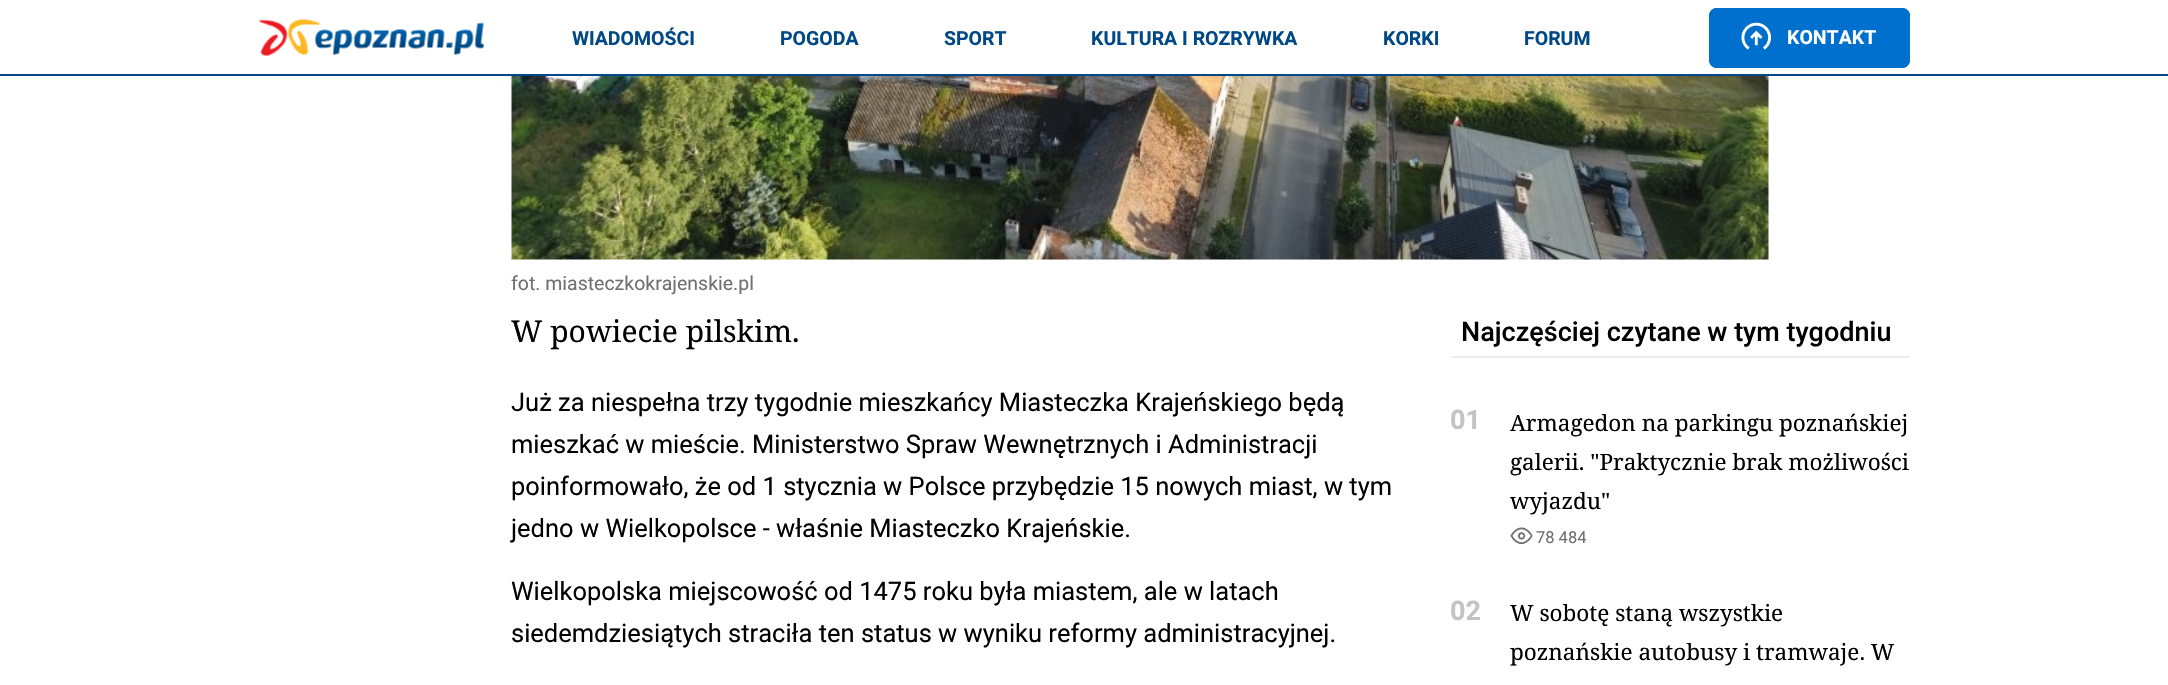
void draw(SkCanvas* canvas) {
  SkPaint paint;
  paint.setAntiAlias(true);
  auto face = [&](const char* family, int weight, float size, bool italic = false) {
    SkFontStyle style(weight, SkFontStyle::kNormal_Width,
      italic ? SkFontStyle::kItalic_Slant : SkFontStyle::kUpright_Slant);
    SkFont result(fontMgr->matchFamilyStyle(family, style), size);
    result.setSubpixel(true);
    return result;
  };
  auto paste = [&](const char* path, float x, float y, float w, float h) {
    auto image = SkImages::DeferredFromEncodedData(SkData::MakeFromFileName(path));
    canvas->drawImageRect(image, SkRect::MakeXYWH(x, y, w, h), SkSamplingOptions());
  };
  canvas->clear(0xffffffff);
  paste("img/1.png", 259, 19, 226, 37);
  paint.setColor(0xff004986);
  canvas->drawRect(SkRect::MakeXYWH(0, 74, 2168, 2), paint);
  paint.setColor(0xff0070ce);
  canvas->drawRoundRect(SkRect::MakeXYWH(1709, 8, 201, 60), 8, 8, paint);
  paste("img/2.png", 1741, 22, 30, 28);
  paint.setStroke(true);
  paint.setStrokeWidth(3);
  canvas->drawRoundRect(SkRect::MakeXYWH(1710.5f, 9.5f, 198, 57), 6.5f, 6.5f, paint);
  paste("img/3.png", 511, 76, 1258, 184);
  paint.setStroke(false);
  paint.setColor(0xffededed);
  canvas->drawRect(SkRect::MakeXYWH(1451, 356, 459, 2), paint);
  paste("img/4.png", 1510, 527, 23, 17);
  auto f0 = face("Roboto", 700, 19.5f);
  paint.setColor(0xff004986);
  {
    const struct { const char* s; float x, y; } items[] = {
      {"WIADOMOŚCI", 572, 45},
      {"POGODA", 780, 45},
      {"SPORT", 944, 45},
      {"KULTURA I ROZRYWKA", 1091, 45},
      {"KORKI", 1383, 45},
      {"FORUM", 1524, 45},
    };
    for (auto [s, x, y] : items) {
      canvas->drawString(s, x, y, f0, paint);
    }
  }
  paint.setColor(0xffffffff);
  canvas->drawString("KONTAKT", 1787, 44, f0, paint);
  auto f1 = face("Roboto", 400, 19.5f);
  paint.setColor(0xff707070);
  canvas->drawString("fot. miasteczkokrajenskie.pl", 511, 290, f1, paint);
  auto f2 = face("Noto Serif", 400, 30);
  paint.setColor(0xff000000);
  canvas->drawString("W powiecie pilskim.", 511, 342, f2, paint);
  auto f3 = face("Roboto", 400, 25.5f);
  {
    const struct { const char* s; float x, y; } items[] = {
      {"Już za niespełna trzy tygodnie mieszkańcy Miasteczka Krajeńskiego będą", 511, 411},
      {"mieszkać w mieście. Ministerstwo Spraw Wewnętrznych i Administracji", 511, 453},
      {"poinformowało, że od 1 stycznia w Polsce przybędzie 15 nowych miast, w tym", 511, 495},
      {"jedno w Wielkopolsce - właśnie Miasteczko Krajeńskie.", 511, 537},
      {"Wielkopolska miejscowość od 1475 roku była miastem, ale w latach", 511, 600},
      {"siedemdziesiątych straciła ten status w wyniku reformy administracyjnej.", 511, 642},
    };
    for (auto [s, x, y] : items) {
      canvas->drawString(s, x, y, f3, paint);
    }
  }
  auto f4 = face("Roboto", 500, 27);
  canvas->drawString("Najczęściej czytane w tym tygodniu", 1461, 341, f4, paint);
  auto f5 = face("Roboto", 700, 27);
  paint.setColor(0xffc3c3c3);
  canvas->drawString("01", 1450, 429, f5, paint);
  auto f6 = face("Noto Serif", 400, 22.5f);
  paint.setColor(0xff000000);
  {
    const struct { const char* s; float x, y; } items[] = {
      {"Armagedon na parkingu poznańskiej", 1510, 431},
      {"galerii. \"Praktycznie brak możliwości", 1510, 470},
      {"wyjazdu\"", 1510, 509},
    };
    for (auto [s, x, y] : items) {
      canvas->drawString(s, x, y, f6, paint);
    }
  }
  auto f7 = face("Roboto", 400, 16.5f);
  paint.setColor(0xff707070);
  canvas->drawString("78 484", 1536, 543, f7, paint);
  paint.setColor(0xffc3c3c3);
  canvas->drawString("02", 1450, 620, f5, paint);
  paint.setColor(0xff000000);
  canvas->drawString("W sobotę staną wszystkie", 1510, 621, f6, paint);
  canvas->drawString("poznańskie autobusy i tramwaje. W", 1510, 660, f6, paint);
}
